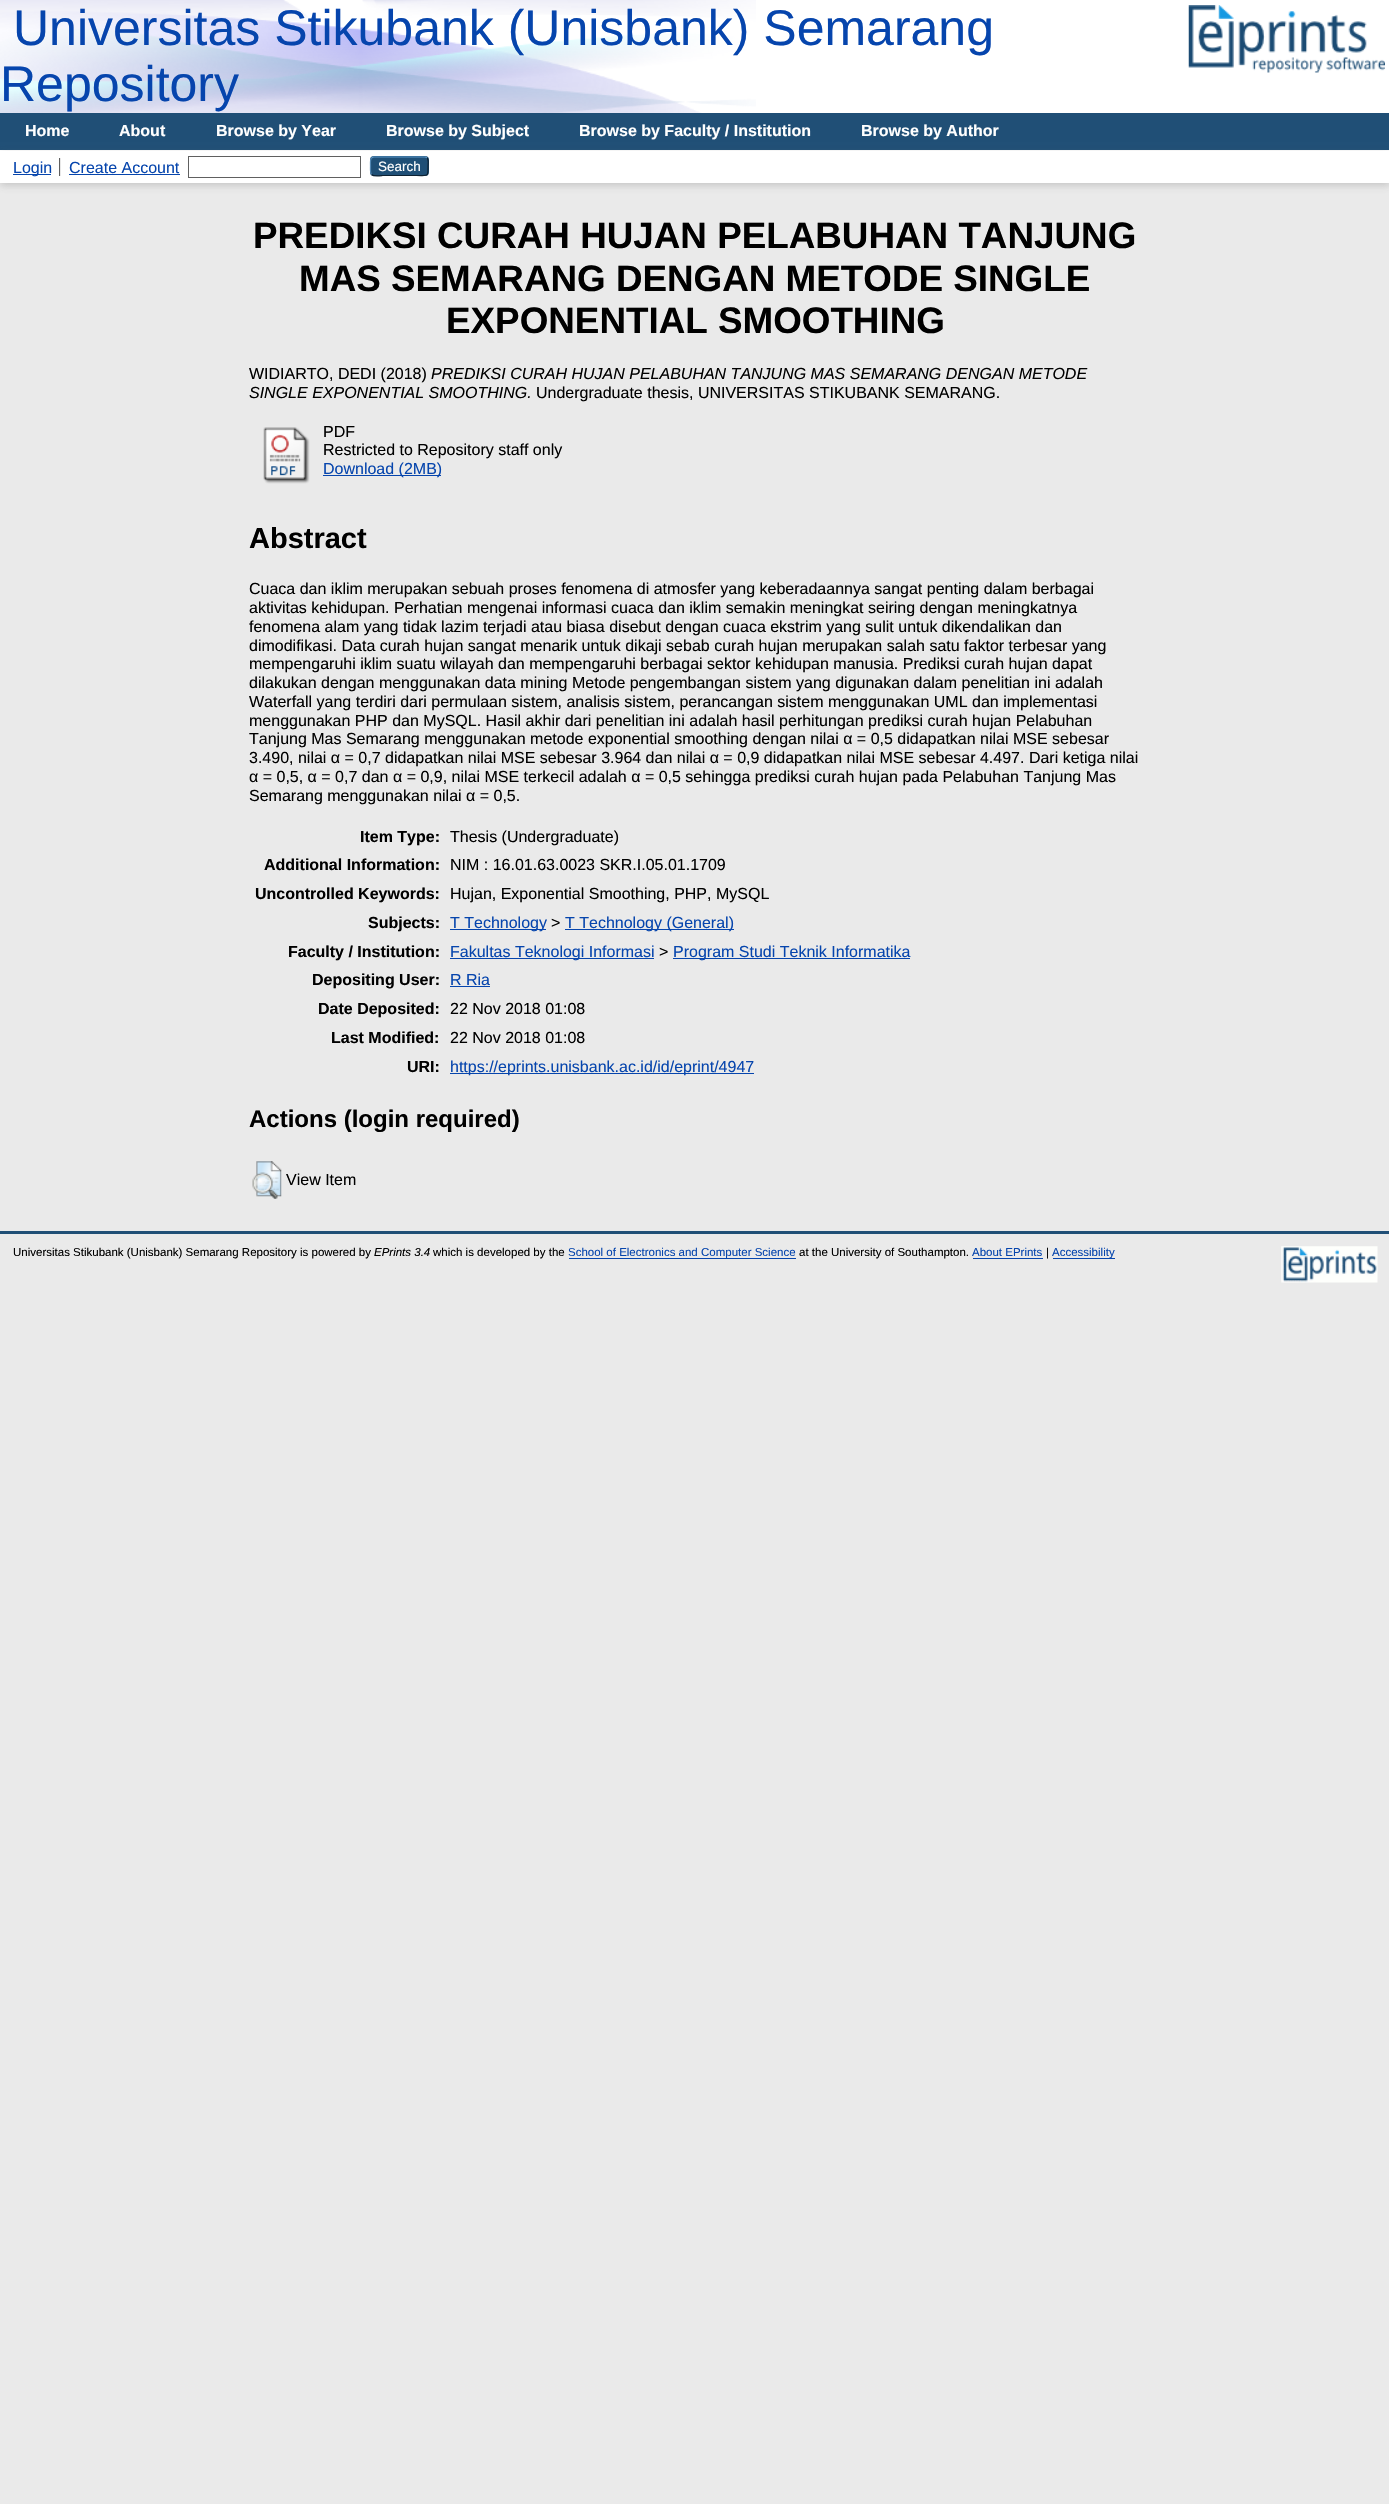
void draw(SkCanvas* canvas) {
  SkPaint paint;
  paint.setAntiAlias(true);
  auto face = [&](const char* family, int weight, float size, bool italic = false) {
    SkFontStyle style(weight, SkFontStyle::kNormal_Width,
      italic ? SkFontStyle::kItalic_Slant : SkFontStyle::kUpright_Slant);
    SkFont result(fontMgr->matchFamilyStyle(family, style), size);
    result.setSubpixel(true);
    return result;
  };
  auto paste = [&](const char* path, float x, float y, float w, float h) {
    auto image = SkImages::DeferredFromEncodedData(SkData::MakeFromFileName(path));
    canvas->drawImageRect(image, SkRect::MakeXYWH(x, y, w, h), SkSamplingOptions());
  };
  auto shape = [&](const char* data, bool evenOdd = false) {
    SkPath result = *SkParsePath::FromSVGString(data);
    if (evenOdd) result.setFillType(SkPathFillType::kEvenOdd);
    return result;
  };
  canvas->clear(0xffeaeaea);
  paint.setColor(0xffffffff);
  canvas->drawRect(SkRect::MakeXYWH(0, 0, 1389, 113), paint);
  paste("img/1.png", 0, 0, 756, 113);
  paste("img/2.png", 1188, 5, 197, 68);
  paint.setColor(0xff204f76);
  canvas->drawRect(SkRect::MakeXYWH(0, 113, 1389, 37), paint);
  paint.setColor(0xffffffff);
  canvas->drawRect(SkRect::MakeXYWH(0, 150, 1389, 1), paint);
  paint.setColor(0x4d646464);
  paint.setMaskFilter(SkMaskFilter::MakeBlur(kNormal_SkBlurStyle, 4));
  canvas->drawRect(SkRect::MakeXYWH(0, 154, 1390, 31), paint);
  paint.setMaskFilter(nullptr);
  {
    const struct { float x, y, w, h; SkColor color; } items[] = {
      {0, 151, 1389, 32, 0xffffffff},
      {59, 158, 1, 18, 0xff606060},
      {13, 174, 38, 1, 0xff0645ad},
      {60, 158, 1, 18, 0xffe8e8e8},
      {69, 174, 111, 1, 0xff0645ad},
    };
    for (auto [x, y, w, h, color] : items) {
      paint.setColor(color);
      canvas->drawRect(SkRect::MakeXYWH(x, y, w, h), paint);
    }
  }
  paint.setStroke(true);
  paint.setStrokeWidth(1);
  paint.setColor(0xff606060);
  canvas->drawRect(SkRect::MakeXYWH(188.5f, 156.5f, 172, 21), paint);
  paint.setStroke(false);
  paint.setColor(0xff1f4f76);
  canvas->drawRoundRect(SkRect::MakeXYWH(370, 156, 59, 20), 4, 4, paint);
  paint.setStroke(true);
  paint.setStrokeWidth(1.2f);
  paint.setColor(0xff5b97c7);
  canvas->drawPath(shape("M371.5 158L373.5 157H425.5L427 158"), paint);
  paint.setColor(0xff0d2131);
  canvas->drawPath(shape("M427 158C429 160 428 164 428 166C428 177.5 428.5 175.5 416.5 175.5H382.5C382 175.5 374 177 371.5 174.5"), paint);
  paint.setColor(0xff5287b3);
  canvas->drawPath(shape("M371.5 174.5C370 173 370.5 168.5 370.5 166C370.5 164 370 159.5 371.5 158"), paint);
  paste("img/3.png", 263, 427, 47, 57);
  paint.setStroke(false);
  {
    const struct { float x, y, w, h; SkColor color; } items[] = {
      {323, 475, 118, 1, 0xff0645ad},
      {450, 929, 96, 1, 0xff0645ad},
      {565, 929, 169, 1, 0xff0645ad},
      {450, 958, 204, 1, 0xff0645ad},
      {673, 958, 237, 1, 0xff0645ad},
      {450, 986, 40, 1, 0xff0645ad},
      {450, 1073, 304, 1, 0xff0645ad},
    };
    for (auto [x, y, w, h, color] : items) {
      paint.setColor(color);
      canvas->drawRect(SkRect::MakeXYWH(x, y, w, h), paint);
    }
  }
  paste("img/4.png", 252, 1161, 30, 38);
  {
    const struct { float x, y, w, h; SkColor color; } items[] = {
      {0, 1231, 1389, 3, 0xff204f76},
      {569, 1258, 227, 1, 0xff0645ad},
      {973, 1258, 70, 1, 0xff0645ad},
      {1053, 1258, 62, 1, 0xff0645ad},
    };
    for (auto [x, y, w, h, color] : items) {
      paint.setColor(color);
      canvas->drawRect(SkRect::MakeXYWH(x, y, w, h), paint);
    }
  }
  paste("img/5.png", 1281, 1246, 97, 37);
  auto f0 = face("Liberation Sans", 400, 50);
  canvas->drawString("Universitas Stikubank (Unisbank) Semarang", 13, 45, f0, paint);
  canvas->drawString("Repository", 0, 101, f0, paint);
  auto f1 = face("Liberation Sans", 700, 16);
  paint.setColor(0xffffffff);
  {
    const struct { const char* s; float x, y; } items[] = {
      {"Home", 25, 136},
      {"About", 119, 136},
      {"Browse by Year", 216, 136},
      {"Browse by Subject", 386, 136},
      {"Browse by Faculty / Institution", 579, 136},
      {"Browse by Author", 861, 136},
    };
    for (auto [s, x, y] : items) {
      canvas->drawString(s, x, y, f1, paint);
    }
  }
  auto f2 = face("Liberation Sans", 400, 16);
  paint.setColor(0xff0645ad);
  canvas->drawString("Login", 13, 173, f2, paint);
  canvas->drawString("Create Account", 69, 173, f2, paint);
  auto f3 = face("Liberation Sans", 400, 13.5f);
  paint.setColor(0xffffffff);
  canvas->drawString("Search", 378, 171, f3, paint);
  auto f4 = face("Liberation Sans", 700, 36.8f);
  paint.setColor(0xff000000);
  {
    const struct { const char* s; float x, y; } items[] = {
      {"PREDIKSI CURAH HUJAN PELABUHAN TANJUNG", 253, 248},
      {"MAS SEMARANG DENGAN METODE SINGLE", 299, 291},
      {"EXPONENTIAL SMOOTHING", 446, 333},
    };
    for (auto [s, x, y] : items) {
      canvas->drawString(s, x, y, f4, paint);
    }
  }
  canvas->drawString("WIDIARTO, DEDI (2018)", 249, 379, f2, paint);
  auto f5 = face("Liberation Sans", 400, 16, true);
  canvas->drawString("PREDIKSI CURAH HUJAN PELABUHAN TANJUNG MAS SEMARANG DENGAN METODE", 431, 379, f5, paint);
  canvas->drawString("SINGLE EXPONENTIAL SMOOTHING.", 249, 398, f5, paint);
  {
    const struct { const char* s; float x, y; } items[] = {
      {"Undergraduate thesis, UNIVERSITAS STIKUBANK SEMARANG.", 536, 398},
      {"PDF", 323, 437},
      {"Restricted to Repository staff only", 323, 455},
    };
    for (auto [s, x, y] : items) {
      canvas->drawString(s, x, y, f2, paint);
    }
  }
  paint.setColor(0xff0645ad);
  canvas->drawString("Download (2MB)", 323, 474, f2, paint);
  auto f6 = face("Liberation Sans", 700, 29);
  paint.setColor(0xff000000);
  canvas->drawString("Abstract", 249, 548, f6, paint);
  {
    const struct { const char* s; float x, y; } items[] = {
      {"Cuaca dan iklim merupakan sebuah proses fenomena di atmosfer yang keberadaannya sangat penting dalam berbagai", 249, 594},
      {"aktivitas kehidupan. Perhatian mengenai informasi cuaca dan iklim semakin meningkat seiring dengan meningkatnya", 249, 613},
      {"fenomena alam yang tidak lazim terjadi atau biasa disebut dengan cuaca ekstrim yang sulit untuk dikendalikan dan", 249, 632},
      {"dimodifikasi. Data curah hujan sangat menarik untuk dikaji sebab curah hujan merupakan salah satu faktor terbesar yang", 249, 651},
      {"mempengaruhi iklim suatu wilayah dan mempengaruhi berbagai sektor kehidupan manusia. Prediksi curah hujan dapat", 249, 669},
      {"dilakukan dengan menggunakan data mining Metode pengembangan sistem yang digunakan dalam penelitian ini adalah", 249, 688},
      {"Waterfall yang terdiri dari permulaan sistem, analisis sistem, perancangan sistem menggunakan UML dan implementasi", 249, 707},
      {"menggunakan PHP dan MySQL. Hasil akhir dari penelitian ini adalah hasil perhitungan prediksi curah hujan Pelabuhan", 249, 726},
      {"Tanjung Mas Semarang menggunakan metode exponential smoothing dengan nilai α = 0,5 didapatkan nilai MSE sebesar", 249, 744},
      {"3.490, nilai α = 0,7 didapatkan nilai MSE sebesar 3.964 dan nilai α = 0,9 didapatkan nilai MSE sebesar 4.497. Dari ketiga nilai", 249, 763},
      {"α = 0,5, α = 0,7 dan α = 0,9, nilai MSE terkecil adalah α = 0,5 sehingga prediksi curah hujan pada Pelabuhan Tanjung Mas", 249, 782},
      {"Semarang menggunakan nilai α = 0,5.", 249, 801},
    };
    for (auto [s, x, y] : items) {
      canvas->drawString(s, x, y, f2, paint);
    }
  }
  canvas->drawString("Item Type:", 360, 842, f1, paint);
  canvas->drawString("Thesis (Undergraduate)", 450, 842, f2, paint);
  canvas->drawString("Additional Information:", 264, 870, f1, paint);
  canvas->drawString("NIM : 16.01.63.0023 SKR.I.05.01.1709", 450, 870, f2, paint);
  canvas->drawString("Uncontrolled Keywords:", 255, 899, f1, paint);
  canvas->drawString("Hujan, Exponential Smoothing, PHP, MySQL", 450, 899, f2, paint);
  canvas->drawString("Subjects:", 368, 928, f1, paint);
  paint.setColor(0xff0645ad);
  canvas->drawString("T Technology", 450, 928, f2, paint);
  paint.setColor(0xff000000);
  canvas->drawString(">", 551, 928, f2, paint);
  paint.setColor(0xff0645ad);
  canvas->drawString("T Technology (General)", 565, 928, f2, paint);
  paint.setColor(0xff000000);
  canvas->drawString("Faculty / Institution:", 288, 957, f1, paint);
  paint.setColor(0xff0645ad);
  canvas->drawString("Fakultas Teknologi Informasi", 450, 957, f2, paint);
  paint.setColor(0xff000000);
  canvas->drawString(">", 659, 957, f2, paint);
  paint.setColor(0xff0645ad);
  canvas->drawString("Program Studi Teknik Informatika", 673, 957, f2, paint);
  paint.setColor(0xff000000);
  canvas->drawString("Depositing User:", 312, 985, f1, paint);
  paint.setColor(0xff0645ad);
  canvas->drawString("R Ria", 450, 985, f2, paint);
  paint.setColor(0xff000000);
  canvas->drawString("Date Deposited:", 318, 1014, f1, paint);
  canvas->drawString("22 Nov 2018 01:08", 450, 1014, f2, paint);
  canvas->drawString("Last Modified:", 331, 1043, f1, paint);
  canvas->drawString("22 Nov 2018 01:08", 450, 1043, f2, paint);
  canvas->drawString("URI:", 407, 1072, f1, paint);
  paint.setColor(0xff0645ad);
  canvas->drawString("https://eprints.unisbank.ac.id/id/eprint/4947", 450, 1072, f2, paint);
  auto f7 = face("Liberation Sans", 700, 24);
  paint.setColor(0xff000000);
  canvas->drawString("Actions (login required)", 249, 1127, f7, paint);
  canvas->drawString("View Item", 286, 1185, f2, paint);
  auto f8 = face("Liberation Sans", 400, 11.5f);
  canvas->drawString("Universitas Stikubank (Unisbank) Semarang Repository is powered by", 13, 1256, f8, paint);
  auto f9 = face("Liberation Sans", 400, 11.5f, true);
  canvas->drawString("EPrints 3.4", 374, 1256, f9, paint);
  canvas->drawString("which is developed by the", 433, 1256, f8, paint);
  paint.setColor(0xff0645ad);
  canvas->drawString("School of Electronics and Computer Science", 568, 1256, f8, paint);
  paint.setColor(0xff000000);
  canvas->drawString("at the University of Southampton.", 799, 1256, f8, paint);
  paint.setColor(0xff0645ad);
  canvas->drawString("About EPrints", 972, 1256, f8, paint);
  paint.setColor(0xff000000);
  canvas->drawString("|", 1046, 1256, f8, paint);
  paint.setColor(0xff0645ad);
  canvas->drawString("Accessibility", 1052, 1256, f8, paint);
}
